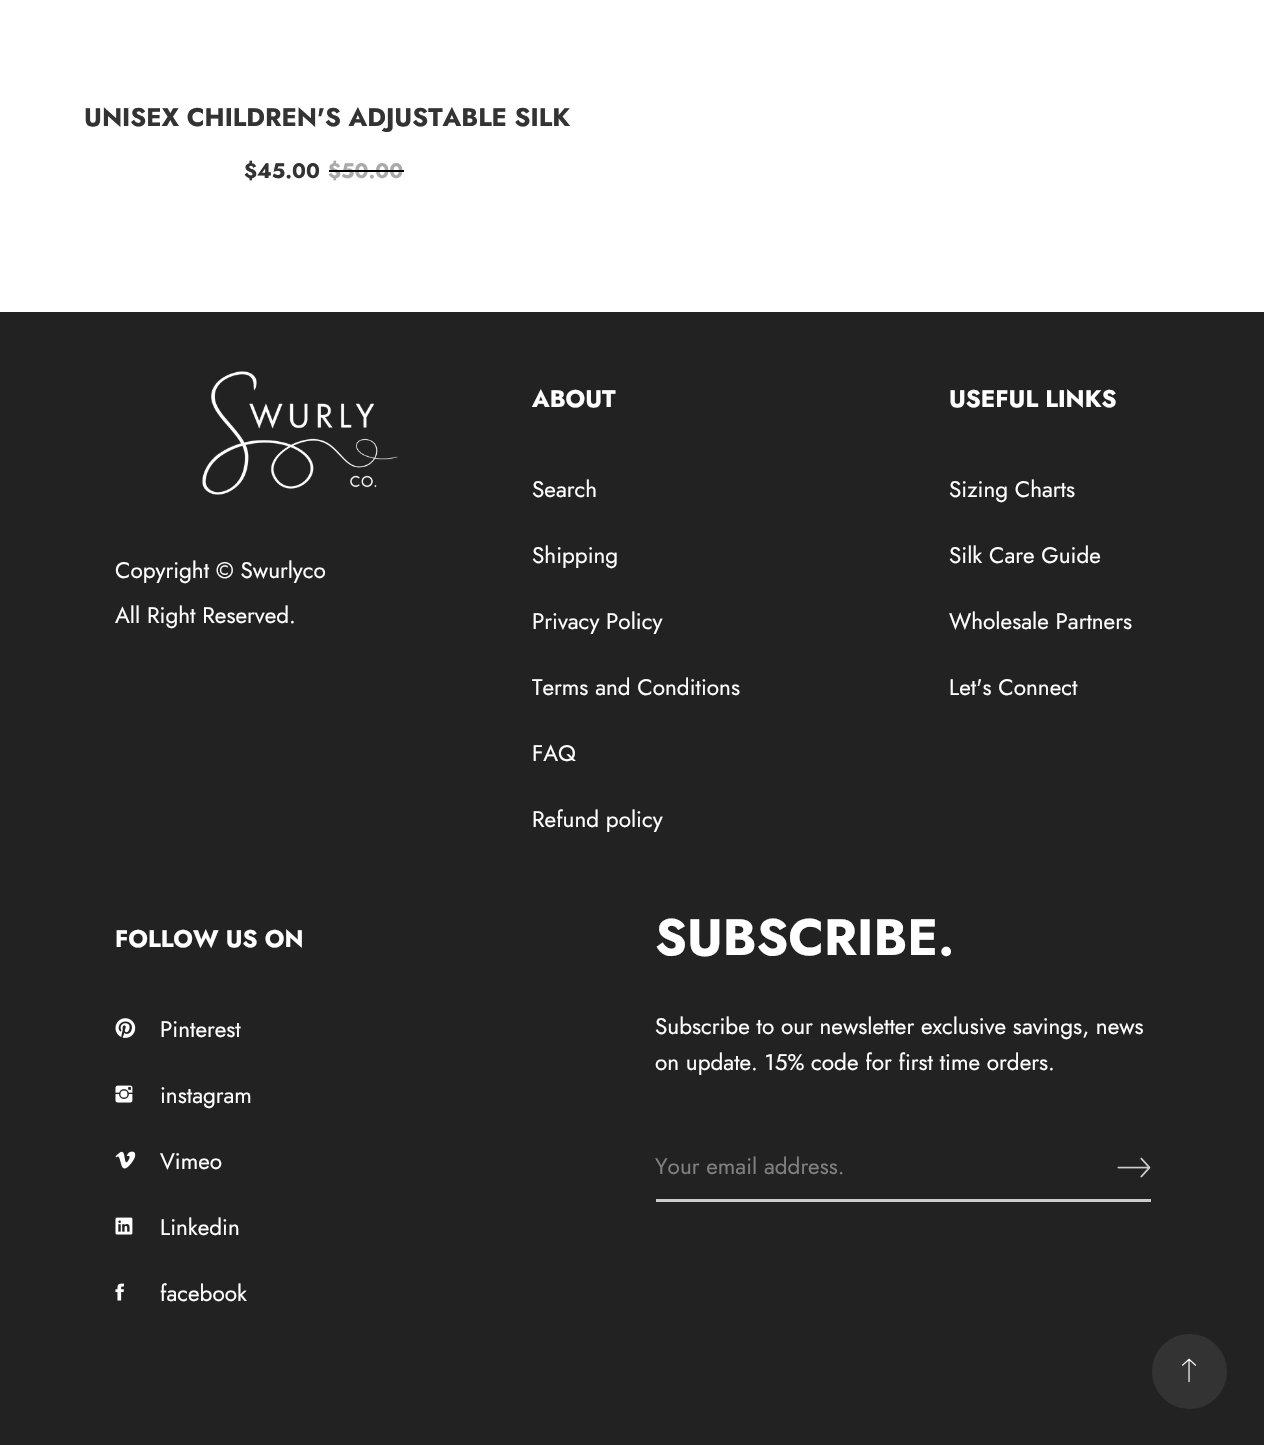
void draw(SkCanvas* canvas) {
  SkPaint paint;
  paint.setAntiAlias(true);
  auto face = [&](const char* family, int weight, float size, bool italic = false) {
    SkFontStyle style(weight, SkFontStyle::kNormal_Width,
      italic ? SkFontStyle::kItalic_Slant : SkFontStyle::kUpright_Slant);
    SkFont result(fontMgr->matchFamilyStyle(family, style), size);
    result.setSubpixel(true);
    return result;
  };
  auto paste = [&](const char* path, float x, float y, float w, float h) {
    auto image = SkImages::DeferredFromEncodedData(SkData::MakeFromFileName(path));
    canvas->drawImageRect(image, SkRect::MakeXYWH(x, y, w, h), SkSamplingOptions());
  };
  canvas->clear(0xffffffff);
  paint.setColor(0xff222222);
  canvas->drawRect(SkRect::MakeXYWH(0, 312, 1264, 1133), paint);
  paste("img/1.png", 202, 371, 196, 124);
  paste("img/2.png", 115, 1018, 21, 20);
  paste("img/3.png", 115, 1085, 18, 18);
  paste("img/4.png", 115, 1151, 21, 18);
  paste("img/5.png", 115, 1217, 18, 18);
  paste("img/6.png", 115, 1283, 9, 18);
  paint.setColor(0xffcccccc);
  canvas->drawRect(SkRect::MakeXYWH(656, 1199, 495, 3), paint);
  paste("img/7.png", 1117, 1157, 34, 21);
  paint.setColor(0xff333333);
  canvas->drawCircle(1189.5f, 1371.5f, 37.5f, paint);
  paste("img/8.png", 1182, 1358, 14, 25);
  auto f0 = face("Jost", 700, 25.5f);
  canvas->drawString("UNISEX CHILDREN'S ADJUSTABLE SILK", 84, 126, f0, paint);
  auto f1 = face("Jost", 700, 21);
  canvas->drawString("$45.00", 244, 178, f1, paint);
  paint.setColor(0xffaaaaaa);
  canvas->drawString("$50.00", 328, 178, f1, paint);
  paint.setColor(0xff000000);
  canvas->drawRect(SkRect::MakeXYWH(329, 170, 75, 2), paint);
  auto f2 = face("Jost", 400, 22.5f);
  paint.setColor(0xffffffff);
  canvas->drawString("Copyright © Swurlyco", 115, 578, f2, paint);
  canvas->drawString("All Right Reserved.", 115, 623, f2, paint);
  auto f3 = face("Jost", 700, 24);
  canvas->drawString("ABOUT", 532, 407, f3, paint);
  {
    const struct { const char* s; float x, y; } items[] = {
      {"Search", 532, 497},
      {"Shipping", 532, 563},
      {"Privacy Policy", 532, 629},
      {"Terms and Conditions", 532, 695},
      {"FAQ", 532, 761},
      {"Refund policy", 532, 827},
    };
    for (auto [s, x, y] : items) {
      canvas->drawString(s, x, y, f2, paint);
    }
  }
  canvas->drawString("USEFUL LINKS", 949, 407, f3, paint);
  {
    const struct { const char* s; float x, y; } items[] = {
      {"Sizing Charts", 949, 497},
      {"Silk Care Guide", 949, 563},
      {"Wholesale Partners", 949, 629},
      {"Let's Connect", 949, 695},
    };
    for (auto [s, x, y] : items) {
      canvas->drawString(s, x, y, f2, paint);
    }
  }
  canvas->drawString("FOLLOW US ON", 115, 947, f3, paint);
  {
    const struct { const char* s; float x, y; } items[] = {
      {"Pinterest", 160, 1037},
      {"instagram", 160, 1103},
      {"Vimeo", 160, 1169},
      {"Linkedin", 160, 1235},
      {"facebook", 160, 1301},
    };
    for (auto [s, x, y] : items) {
      canvas->drawString(s, x, y, f2, paint);
    }
  }
  auto f4 = face("Jost", 700, 51);
  canvas->drawString("SUBSCRIBE.", 655, 955, f4, paint);
  canvas->drawString("Subscribe to our newsletter exclusive savings, news", 655, 1034, f2, paint);
  canvas->drawString("on update. 15% code for first time orders.", 655, 1070, f2, paint);
  paint.setColor(0xff808080);
  canvas->drawString("Your email address.", 655, 1174, f2, paint);
}
